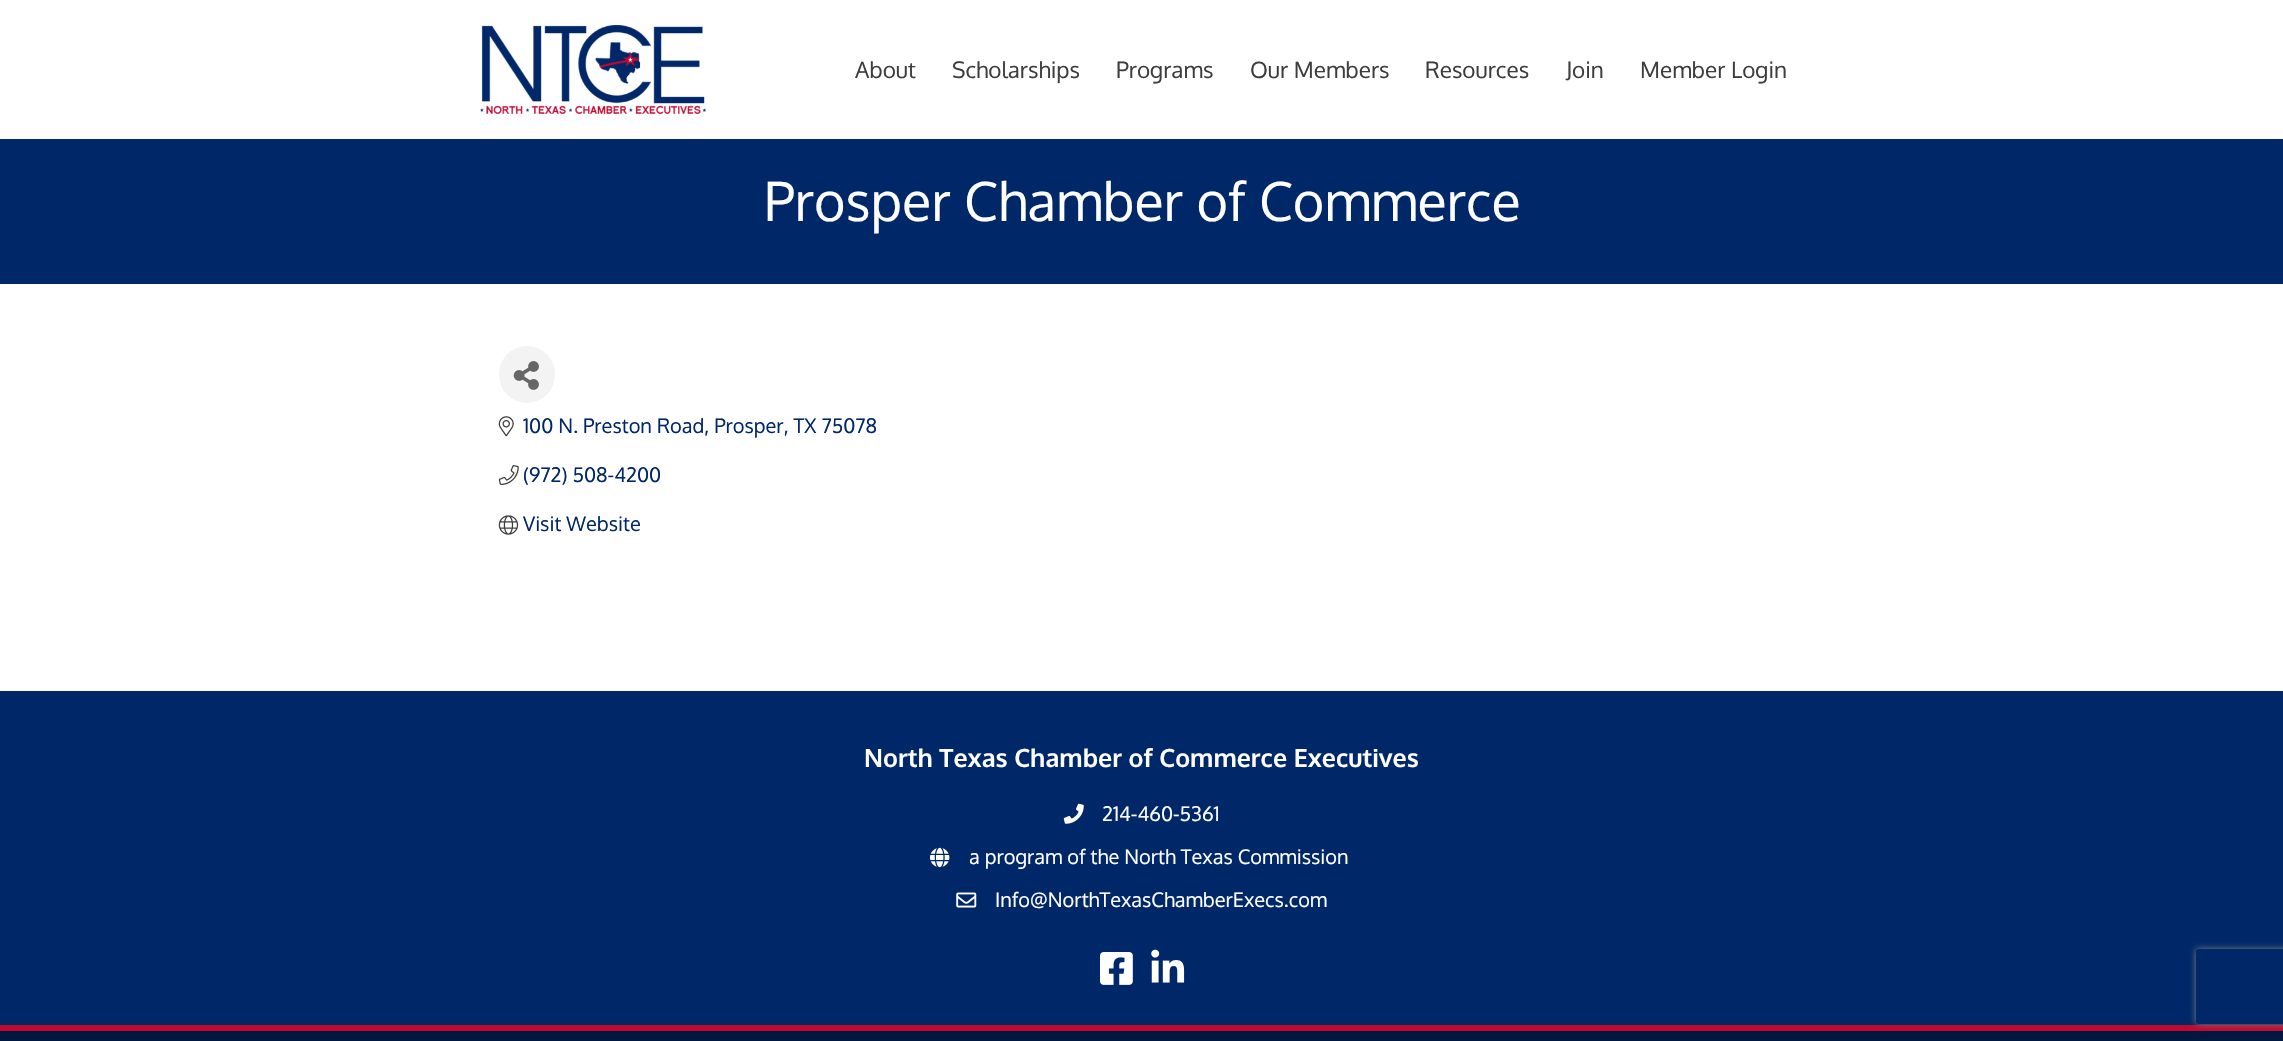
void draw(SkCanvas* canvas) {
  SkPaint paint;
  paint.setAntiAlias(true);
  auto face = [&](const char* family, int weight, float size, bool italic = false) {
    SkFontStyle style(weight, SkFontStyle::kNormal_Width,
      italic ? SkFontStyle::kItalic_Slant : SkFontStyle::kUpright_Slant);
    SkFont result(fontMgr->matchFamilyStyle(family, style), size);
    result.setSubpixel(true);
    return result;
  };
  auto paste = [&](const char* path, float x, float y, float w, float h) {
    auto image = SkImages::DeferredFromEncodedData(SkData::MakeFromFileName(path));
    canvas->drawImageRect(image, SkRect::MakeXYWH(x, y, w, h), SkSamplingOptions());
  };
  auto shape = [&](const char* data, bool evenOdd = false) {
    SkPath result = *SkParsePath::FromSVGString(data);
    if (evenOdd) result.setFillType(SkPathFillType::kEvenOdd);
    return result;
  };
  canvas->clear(0xffffffff);
  paste("img/1.png", 480, 25, 227, 89);
  paint.setColor(0xff002868);
  canvas->drawRect(SkRect::MakeXYWH(0, 139, 2283, 145), paint);
  paint.setColor(0xfff3f3f3);
  canvas->drawRoundRect(SkRect::MakeXYWH(499, 346, 56, 57), 28, 28, paint);
  paste("img/2.png", 513, 361, 26, 29);
  paste("img/3.png", 498, 416, 16, 21);
  paste("img/4.png", 498, 465, 21, 20);
  paste("img/5.png", 498, 515, 21, 20);
  paint.setColor(0xff002868);
  canvas->drawRect(SkRect::MakeXYWH(0, 691, 2283, 334), paint);
  paint.setColor(0xffbf0a30);
  canvas->drawRect(SkRect::MakeXYWH(0, 1025, 2283, 6), paint);
  paste("img/6.png", 1063, 803, 21, 21);
  paste("img/7.png", 930, 847, 20, 21);
  paste("img/8.png", 956, 892, 21, 16);
  paste("img/9.png", 1100, 952, 33, 33);
  paste("img/10.png", 1151, 949, 34, 34);
  paint.setColor(0xff00183f);
  canvas->drawRect(SkRect::MakeXYWH(0, 1031, 2283, 10), paint);
  canvas->save();
  canvas->clipPath(shape("M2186 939H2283V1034H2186ZM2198.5 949H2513.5C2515 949 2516 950 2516 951.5V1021.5C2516 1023 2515 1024 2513.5 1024H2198.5C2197 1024 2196 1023 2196 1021.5V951.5C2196 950 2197 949 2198.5 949Z", true), true);
  paint.setColor(0xff808080);
  paint.setMaskFilter(SkMaskFilter::MakeBlur(kNormal_SkBlurStyle, 3));
  canvas->drawRoundRect(SkRect::MakeXYWH(2196, 949, 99, 75), 2.5f, 2.5f, paint);
  paint.setMaskFilter(nullptr);
  canvas->restore();
  auto f0 = face("Oxygen", 400, 22.5f);
  paint.setColor(0xff3d3d3d);
  {
    const struct { const char* s; float x, y; } items[] = {
      {"About", 855, 78},
      {"Scholarships", 952, 78},
      {"Programs", 1116, 78},
      {"Our Members", 1250, 78},
      {"Resources", 1425, 78},
      {"Join", 1566, 78},
      {"Member Login", 1640, 78},
    };
    for (auto [s, x, y] : items) {
      canvas->drawString(s, x, y, f0, paint);
    }
  }
  auto f1 = face("Oxygen", 400, 53.75f);
  paint.setColor(0xffffffff);
  canvas->drawString("Prosper Chamber of Commerce", 764, 221, f1, paint);
  auto f2 = face("Oxygen", 400, 20);
  paint.setColor(0xff002868);
  {
    const struct { const char* s; float x, y; } items[] = {
      {"100 N. Preston Road, Prosper, TX 75078", 523, 433},
      {"(972) 508-4200", 523, 482},
      {"Visit Website", 523, 531},
    };
    for (auto [s, x, y] : items) {
      canvas->drawString(s, x, y, f2, paint);
    }
  }
  auto f3 = face("Oxygen", 700, 25);
  paint.setColor(0xffffffff);
  canvas->drawString("North Texas Chamber of Commerce Executives", 864, 767, f3, paint);
  {
    const struct { const char* s; float x, y; } items[] = {
      {"214-460-5361", 1102, 821},
      {"a program of the North Texas Commission", 969, 864},
      {"Info@NorthTexasChamberExecs.com", 995, 907},
    };
    for (auto [s, x, y] : items) {
      canvas->drawString(s, x, y, f2, paint);
    }
  }
}
